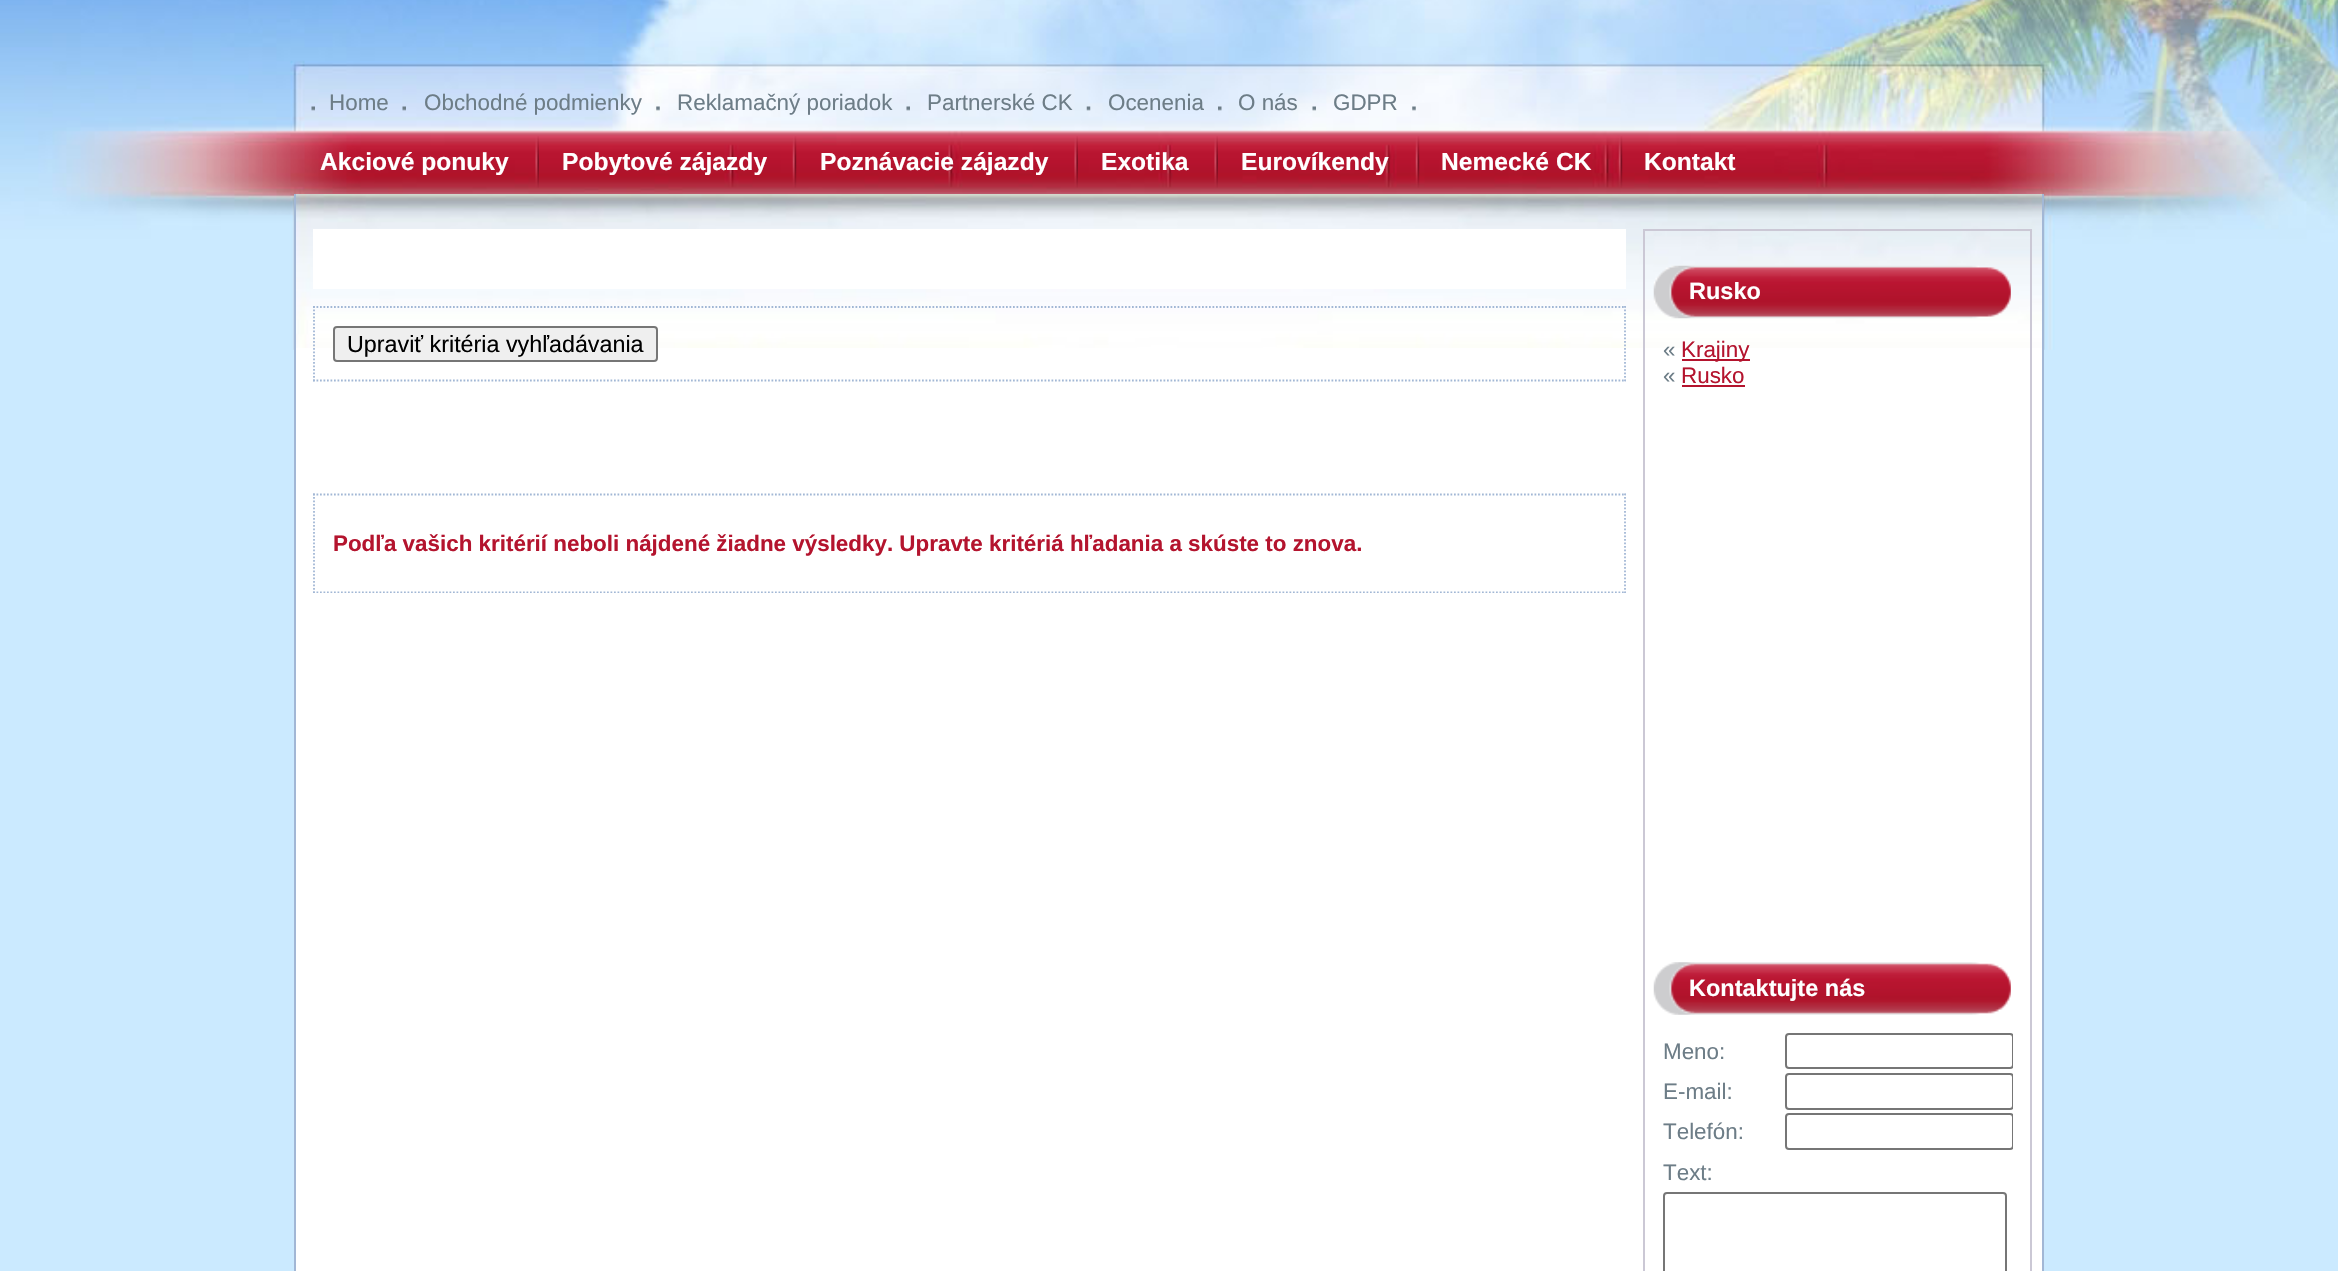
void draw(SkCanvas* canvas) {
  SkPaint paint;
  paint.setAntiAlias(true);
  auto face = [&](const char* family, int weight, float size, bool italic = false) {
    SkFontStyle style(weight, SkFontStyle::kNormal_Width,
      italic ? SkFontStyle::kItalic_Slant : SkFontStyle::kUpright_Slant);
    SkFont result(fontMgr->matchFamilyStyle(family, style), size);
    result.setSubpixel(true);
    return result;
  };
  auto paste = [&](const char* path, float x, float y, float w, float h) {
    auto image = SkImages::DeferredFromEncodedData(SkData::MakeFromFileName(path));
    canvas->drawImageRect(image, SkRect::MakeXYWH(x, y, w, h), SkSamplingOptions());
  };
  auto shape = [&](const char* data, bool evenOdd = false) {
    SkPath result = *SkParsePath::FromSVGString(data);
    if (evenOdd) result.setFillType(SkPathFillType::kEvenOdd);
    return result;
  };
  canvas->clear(0xffcbeaff);
  paste("img/1.png", 0, 0, 2338, 350);
  paste("img/2.png", 311, 106, 4, 5);
  paste("img/3.png", 402, 106, 4, 5);
  paste("img/4.png", 656, 106, 4, 5);
  paste("img/5.png", 906, 106, 4, 5);
  paste("img/6.png", 1086, 106, 5, 5);
  paste("img/7.png", 1218, 106, 4, 5);
  paste("img/8.png", 1312, 106, 4, 5);
  paste("img/9.png", 1412, 106, 4, 5);
  paste("img/10.png", 535, 136, 4, 52);
  paste("img/11.png", 792, 136, 5, 52);
  paste("img/12.png", 1074, 136, 4, 52);
  paste("img/12.png", 1214, 136, 4, 52);
  paste("img/13.png", 1415, 136, 5, 52);
  paste("img/14.png", 1618, 136, 5, 52);
  paint.setColor(0xffffffff);
  canvas->drawRect(SkRect::MakeXYWH(296, 348, 1746, 923), paint);
  paste("img/15.png", 296, 194, 1746, 154);
  {
    const struct { float x, y, w, h; SkColor color; } items[] = {
      {2042, 194, 2, 1077, 0xffa2b7d5},
      {294, 194, 2, 1077, 0xffa2b7d5},
      {313, 229, 1313, 60, 0xffffffff},
    };
    for (auto [x, y, w, h, color] : items) {
      paint.setColor(color);
      canvas->drawRect(SkRect::MakeXYWH(x, y, w, h), paint);
    }
  }
  paint.setStroke(true);
  paint.setStrokeWidth(1.8f);
  paint.setColor(0xffa2b7d5);
  paint.setPathEffect(SkDashPathEffect::Make({{1.75f, 1.75f}}, 0));
  canvas->drawPath(shape("M313 307H1626"), paint);
  paint.setPathEffect(nullptr);
  paint.setPathEffect(SkDashPathEffect::Make({{1.75f, 1.75f}}, 0));
  canvas->drawPath(shape("M1625 306V381.5"), paint);
  paint.setPathEffect(nullptr);
  paint.setPathEffect(SkDashPathEffect::Make({{1.75f, 1.75f}}, 0));
  canvas->drawPath(shape("M313 380.5H1626"), paint);
  paint.setPathEffect(nullptr);
  paint.setPathEffect(SkDashPathEffect::Make({{1.75f, 1.75f}}, 0));
  canvas->drawPath(shape("M314 306V381.5"), paint);
  paint.setPathEffect(nullptr);
  paint.setStroke(false);
  paint.setColor(0xffefefef);
  canvas->drawRoundRect(SkRect::MakeXYWH(334, 327, 323, 34), 3, 3, paint);
  paint.setStroke(true);
  paint.setStrokeWidth(2);
  paint.setColor(0xff767676);
  canvas->drawRoundRect(SkRect::MakeXYWH(334, 327, 323, 34), 3, 3, paint);
  paint.setStrokeWidth(1.8f);
  paint.setColor(0xffa2b7d5);
  paint.setPathEffect(SkDashPathEffect::Make({{1.75f, 1.75f}}, 0));
  canvas->drawPath(shape("M313 494.5H1626"), paint);
  paint.setPathEffect(nullptr);
  paint.setPathEffect(SkDashPathEffect::Make({{1.75f, 1.75f}}, 0));
  canvas->drawPath(shape("M1625 493.5V593"), paint);
  paint.setPathEffect(nullptr);
  canvas->save();
  canvas->clipRect(SkRect::MakeXYWH(313, 194, 1313, 399));
  paint.setPathEffect(SkDashPathEffect::Make({{1.75f, 1.75f}}, 0));
  canvas->drawPath(shape("M313 592.5H1626"), paint);
  paint.setPathEffect(nullptr);
  canvas->restore();
  paint.setPathEffect(SkDashPathEffect::Make({{1.75f, 1.75f}}, 0));
  canvas->drawPath(shape("M314 493.5V593"), paint);
  paint.setPathEffect(nullptr);
  paint.setStrokeWidth(2);
  paint.setColor(0xffcbc8d5);
  canvas->drawRect(SkRect::MakeXYWH(1644, 230, 387, 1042), paint);
  paste("img/16.png", 1653, 265, 358, 54);
  paint.setStroke(false);
  paint.setColor(0xffb4142e);
  canvas->drawRect(SkRect::MakeXYWH(1682, 359, 68, 2), paint);
  canvas->drawRect(SkRect::MakeXYWH(1682, 385, 63, 2), paint);
  paste("img/17.png", 1653, 962, 358, 53);
  canvas->save();
  canvas->clipRect(SkRect::MakeXYWH(1663, 1033, 350, 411));
  paint.setStroke(true);
  paint.setColor(0xff767676);
  canvas->drawRoundRect(SkRect::MakeXYWH(1786, 1034, 227, 34), 3, 3, paint);
  canvas->drawRoundRect(SkRect::MakeXYWH(1786, 1074, 227, 35), 3, 3, paint);
  canvas->drawRoundRect(SkRect::MakeXYWH(1786, 1114, 227, 35), 3, 3, paint);
  canvas->restore();
  canvas->drawRoundRect(SkRect::MakeXYWH(1664, 1193, 342, 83), 3, 3, paint);
  auto f0 = face("Liberation Sans", 400, 22.4f);
  paint.setStroke(false);
  paint.setColor(0xff6d7d87);
  {
    const struct { const char* s; float x, y; } items[] = {
      {"Home", 329, 110},
      {"Obchodné podmienky", 424, 110},
      {"Reklamačný poriadok", 677, 110},
      {"Partnerské CK", 927, 110},
      {"Ocenenia", 1108, 110},
      {"O nás", 1238, 110},
      {"GDPR", 1333, 110},
    };
    for (auto [s, x, y] : items) {
      canvas->drawString(s, x, y, f0, paint);
    }
  }
  auto f1 = face("Liberation Sans", 700, 24.6f);
  paint.setColor(0xffffffff);
  {
    const struct { const char* s; float x, y; } items[] = {
      {"Akciové ponuky", 320, 170},
      {"Pobytové zájazdy", 562, 170},
      {"Poznávacie zájazdy", 820, 170},
      {"Exotika", 1101, 170},
      {"Eurovíkendy", 1241, 170},
      {"Nemecké CK", 1441, 170},
      {"Kontakt", 1644, 170},
    };
    for (auto [s, x, y] : items) {
      canvas->drawString(s, x, y, f1, paint);
    }
  }
  auto f2 = face("Liberation Sans", 400, 23.3f);
  paint.setColor(0xff000000);
  canvas->drawString("Upraviť kritéria vyhľadávania", 347, 352, f2, paint);
  auto f3 = face("Liberation Sans", 700, 22.4f);
  paint.setColor(0xffb4142e);
  canvas->drawString("Podľa vašich kritérií neboli nájdené žiadne výsledky. Upravte kritériá hľadania a skúste to znova.", 333, 551, f3, paint);
  auto f4 = face("Liberation Sans", 700, 23.5f);
  paint.setColor(0xffffffff);
  canvas->drawString("Rusko", 1689, 299, f4, paint);
  paint.setColor(0xff6d7d87);
  canvas->drawString("«", 1663, 357, f0, paint);
  paint.setColor(0xffb4142e);
  canvas->drawString("Krajiny", 1681, 357, f0, paint);
  paint.setColor(0xff6d7d87);
  canvas->drawString("«", 1663, 383, f0, paint);
  paint.setColor(0xffb4142e);
  canvas->drawString("Rusko", 1681, 383, f0, paint);
  paint.setColor(0xffffffff);
  canvas->drawString("Kontaktujte nás", 1689, 996, f4, paint);
  paint.setColor(0xff6d7d87);
  {
    const struct { const char* s; float x, y; } items[] = {
      {"Meno:", 1663, 1059},
      {"E-mail:", 1663, 1099},
      {"Telefón:", 1663, 1139},
      {"Text:", 1663, 1180},
    };
    for (auto [s, x, y] : items) {
      canvas->drawString(s, x, y, f0, paint);
    }
  }
}
